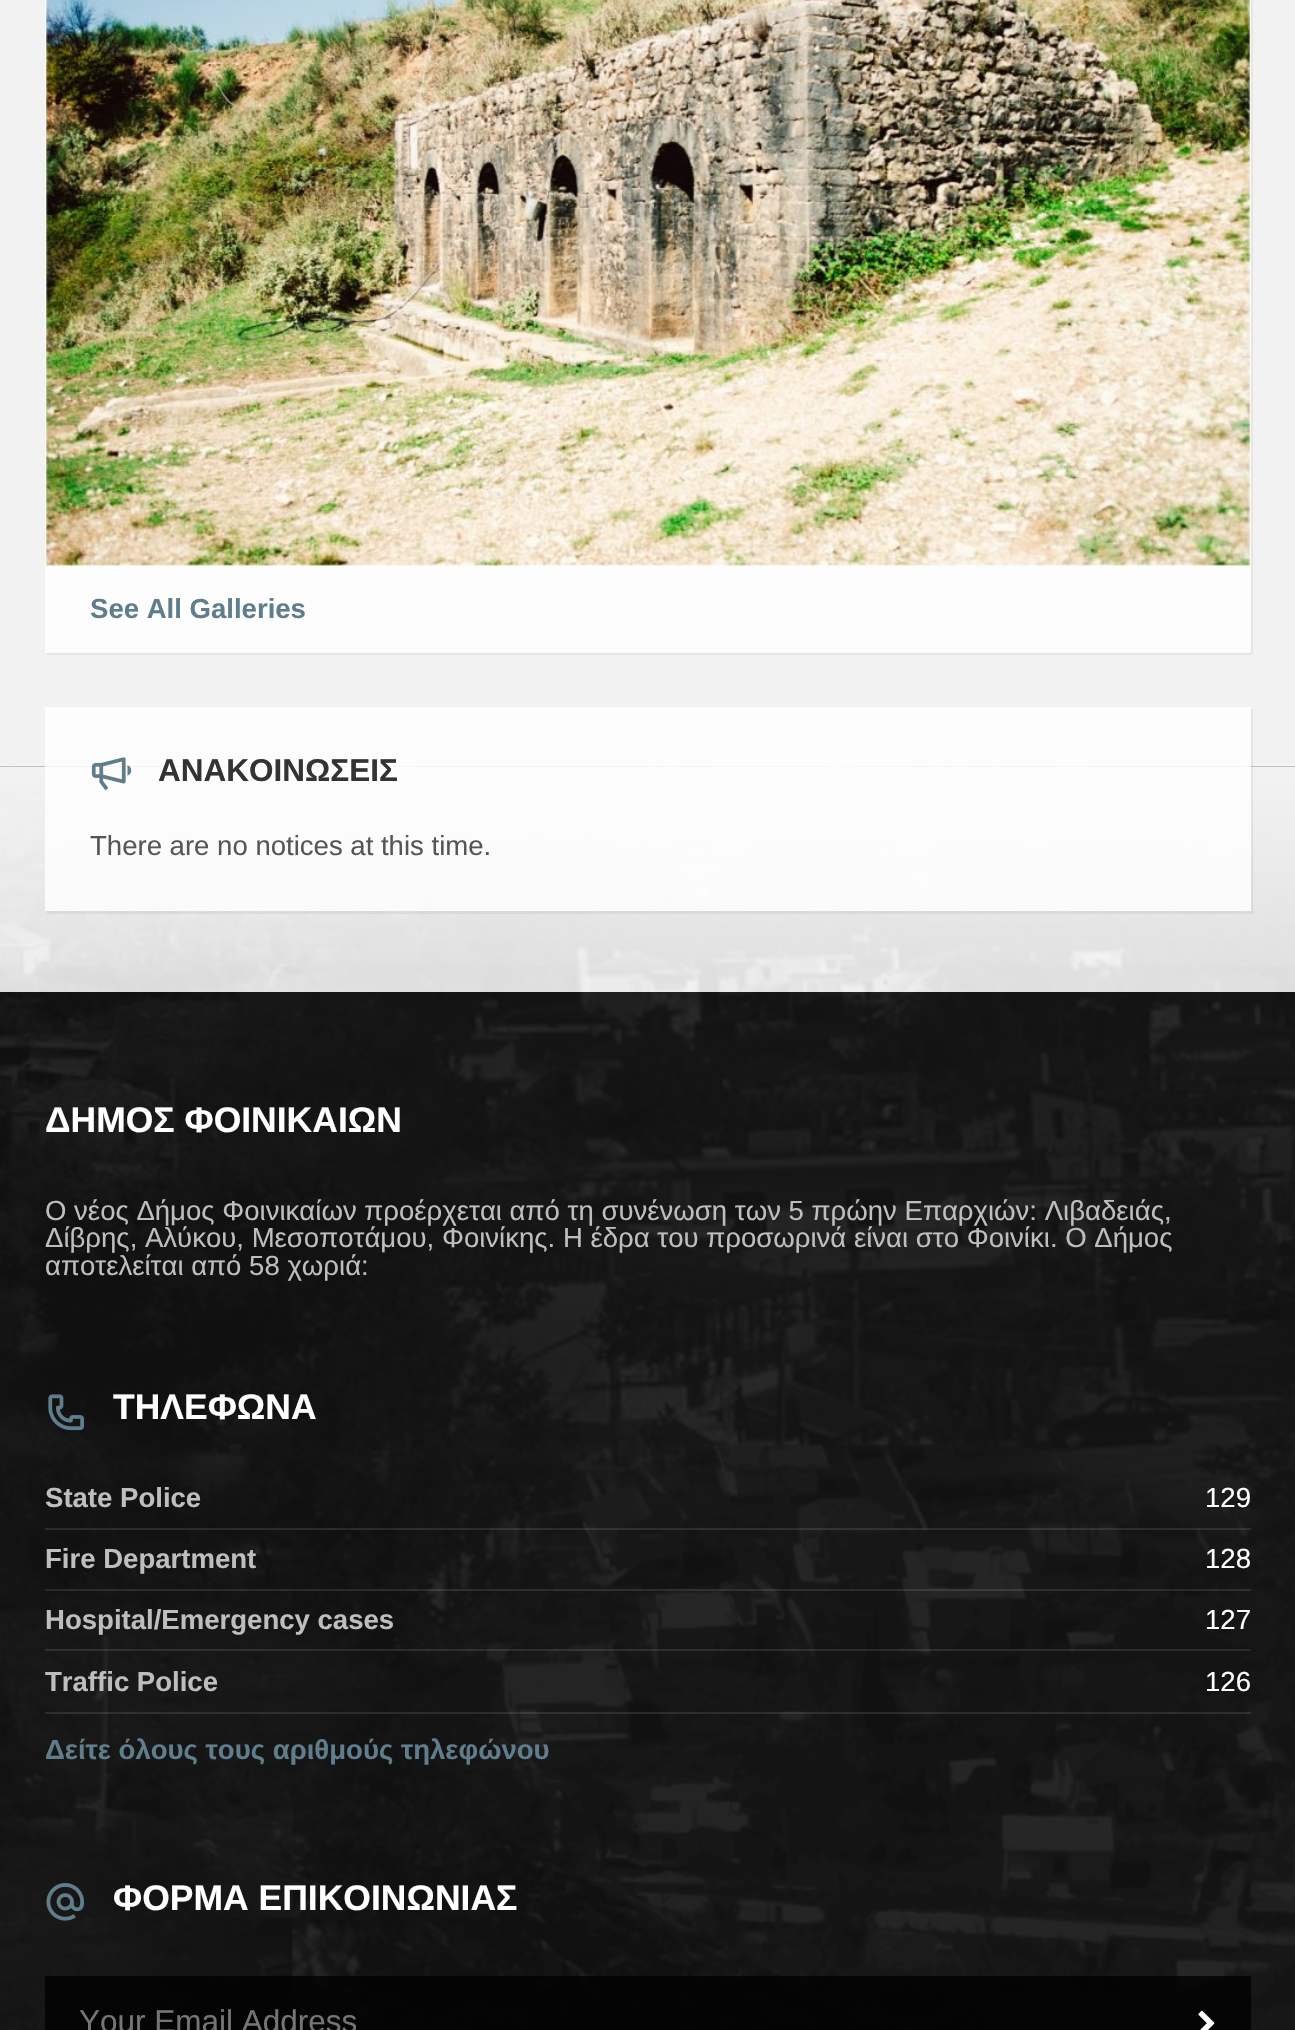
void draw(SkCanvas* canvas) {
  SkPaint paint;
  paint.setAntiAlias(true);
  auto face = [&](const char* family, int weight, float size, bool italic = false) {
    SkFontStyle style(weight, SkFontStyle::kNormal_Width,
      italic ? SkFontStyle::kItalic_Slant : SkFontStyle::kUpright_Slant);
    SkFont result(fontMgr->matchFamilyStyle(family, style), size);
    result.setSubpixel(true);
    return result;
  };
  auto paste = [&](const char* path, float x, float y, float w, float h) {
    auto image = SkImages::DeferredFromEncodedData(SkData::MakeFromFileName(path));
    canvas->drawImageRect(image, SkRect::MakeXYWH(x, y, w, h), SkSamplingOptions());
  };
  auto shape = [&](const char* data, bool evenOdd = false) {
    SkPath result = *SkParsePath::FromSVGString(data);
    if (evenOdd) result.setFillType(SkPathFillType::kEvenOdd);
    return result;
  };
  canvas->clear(0xfff2f2f2);
  paint.setColor(0xffe6e6e6);
  canvas->drawPath(shape("M47 652V655H1253V-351H1251V652Z"), paint);
  paint.setColor(0xccffffff);
  canvas->drawRect(SkRect::MakeXYWH(45, 566, 1206, 87), paint);
  paste("img/1.png", 45, 0, 1206, 567);
  paste("img/3.png", 0, 766, 1295, 1264);
  paint.setColor(0xe6f2f2f2);
  canvas->drawRect(SkRect::MakeXYWH(0, 768, 1295, 224), paint);
  {
    const SkColor colors[] = {0xfff2f2f2, 0x00f2f2f2};
    const float stops[] = {0, 1};
    const SkPoint ends[] = {{648, 767}, {648, 992}};
    paint.setShader(SkGradientShader::MakeLinear(ends, colors, stops, 2, SkTileMode::kClamp));
    paint.setAlpha(255);
  }
  canvas->drawRect(SkRect::MakeXYWH(0, 767, 1295, 199), paint);
  paint.setShader(nullptr);
  paint.setColor(0x0d000000);
  canvas->drawPath(shape("M47 911V914H1253V709H1251V911Z"), paint);
  paint.setColor(0xccffffff);
  canvas->drawRect(SkRect::MakeXYWH(45, 707, 1206, 204), paint);
  paste("img/2.png", 91, 757, 41, 34);
  paint.setColor(0xe6111111);
  canvas->drawRect(SkRect::MakeXYWH(0, 992, 1295, 1038), paint);
  paste("img/4.png", 48, 1394, 36, 37);
  {
    const struct { float x, y, w, h; SkColor color; } items[] = {
      {45, 1528, 603, 2, 0x1affffff},
      {648, 1528, 603, 2, 0x1affffff},
      {45, 1589, 603, 2, 0x1affffff},
      {648, 1589, 603, 2, 0x1affffff},
      {45, 1649, 603, 2, 0x1affffff},
      {648, 1649, 603, 2, 0x1affffff},
      {45, 1712, 1206, 2, 0x1affffff},
    };
    for (auto [x, y, w, h, color] : items) {
      paint.setColor(color);
      canvas->drawRect(SkRect::MakeXYWH(x, y, w, h), paint);
    }
  }
  paste("img/5.png", 46, 1883, 38, 38);
  paint.setColor(0xcc000000);
  canvas->drawRect(SkRect::MakeXYWH(45, 1976, 1206, 54), paint);
  paste("img/6.png", 1198, 2010, 17, 20);
  auto f0 = face("Liberation Sans", 700, 27.55f);
  paint.setColor(0xff607d8b);
  canvas->drawString("See All Galleries", 90, 618, f0, paint);
  auto f1 = face("Liberation Sans", 700, 31.5f);
  paint.setColor(0xff333333);
  canvas->drawString("ΑΝΑΚΟΙΝΩΣΕΙΣ", 158, 781, f1, paint);
  auto f2 = face("Liberation Sans", 400, 27.55f);
  paint.setColor(0xff565656);
  canvas->drawString("There are no notices at this time.", 90, 855, f2, paint);
  auto f3 = face("Liberation Sans", 700, 35.5f);
  paint.setColor(0xffffffff);
  canvas->drawString("ΔΗΜΟΣ ΦΟΙΝΙΚΑΙΩΝ", 45, 1132, f3, paint);
  paint.setColor(0xffbebebe);
  {
    const struct { const char* s; float x, y; } items[] = {
      {"Ο νέος Δήμος Φοινικαίων προέρχεται από τη συνένωση των 5 πρώην Επαρχιών: Λιβαδειάς,", 45, 1220},
      {"Δίβρης, Αλύκου, Μεσοποτάμου, Φοινίκης. Η έδρα του προσωρινά είναι στο Φοινίκι. Ο Δήμος", 45, 1247},
      {"αποτελείται από 58 χωριά:", 45, 1275},
    };
    for (auto [s, x, y] : items) {
      canvas->drawString(s, x, y, f2, paint);
    }
  }
  paint.setColor(0xffffffff);
  canvas->drawString("ΤΗΛΕΦΩΝΑ", 113, 1419, f3, paint);
  paint.setColor(0xffbebebe);
  canvas->drawString("State Police", 45, 1507, f0, paint);
  paint.setColor(0xffffffff);
  canvas->drawString("129", 1205, 1507, f2, paint);
  paint.setColor(0xffbebebe);
  canvas->drawString("Fire Department", 45, 1568, f0, paint);
  paint.setColor(0xffffffff);
  canvas->drawString("128", 1205, 1568, f2, paint);
  paint.setColor(0xffbebebe);
  canvas->drawString("Hospital/Emergency cases", 45, 1629, f0, paint);
  paint.setColor(0xffffffff);
  canvas->drawString("127", 1205, 1629, f2, paint);
  paint.setColor(0xffbebebe);
  canvas->drawString("Traffic Police", 45, 1691, f0, paint);
  paint.setColor(0xffffffff);
  canvas->drawString("126", 1205, 1691, f2, paint);
  paint.setColor(0xff607d8b);
  canvas->drawString("Δείτε όλους τους αριθμούς τηλεφώνου", 45, 1759, f0, paint);
  paint.setColor(0xffffffff);
  canvas->drawString("ΦΟΡΜΑ ΕΠΙΚΟΙΝΩΝΙΑΣ", 113, 1910, f3, paint);
  auto f4 = face("Liberation Sans", 400, 31.5f);
  paint.setColor(0xff757575);
  canvas->drawString("Your Email Address", 79, 2032, f4, paint);
}
